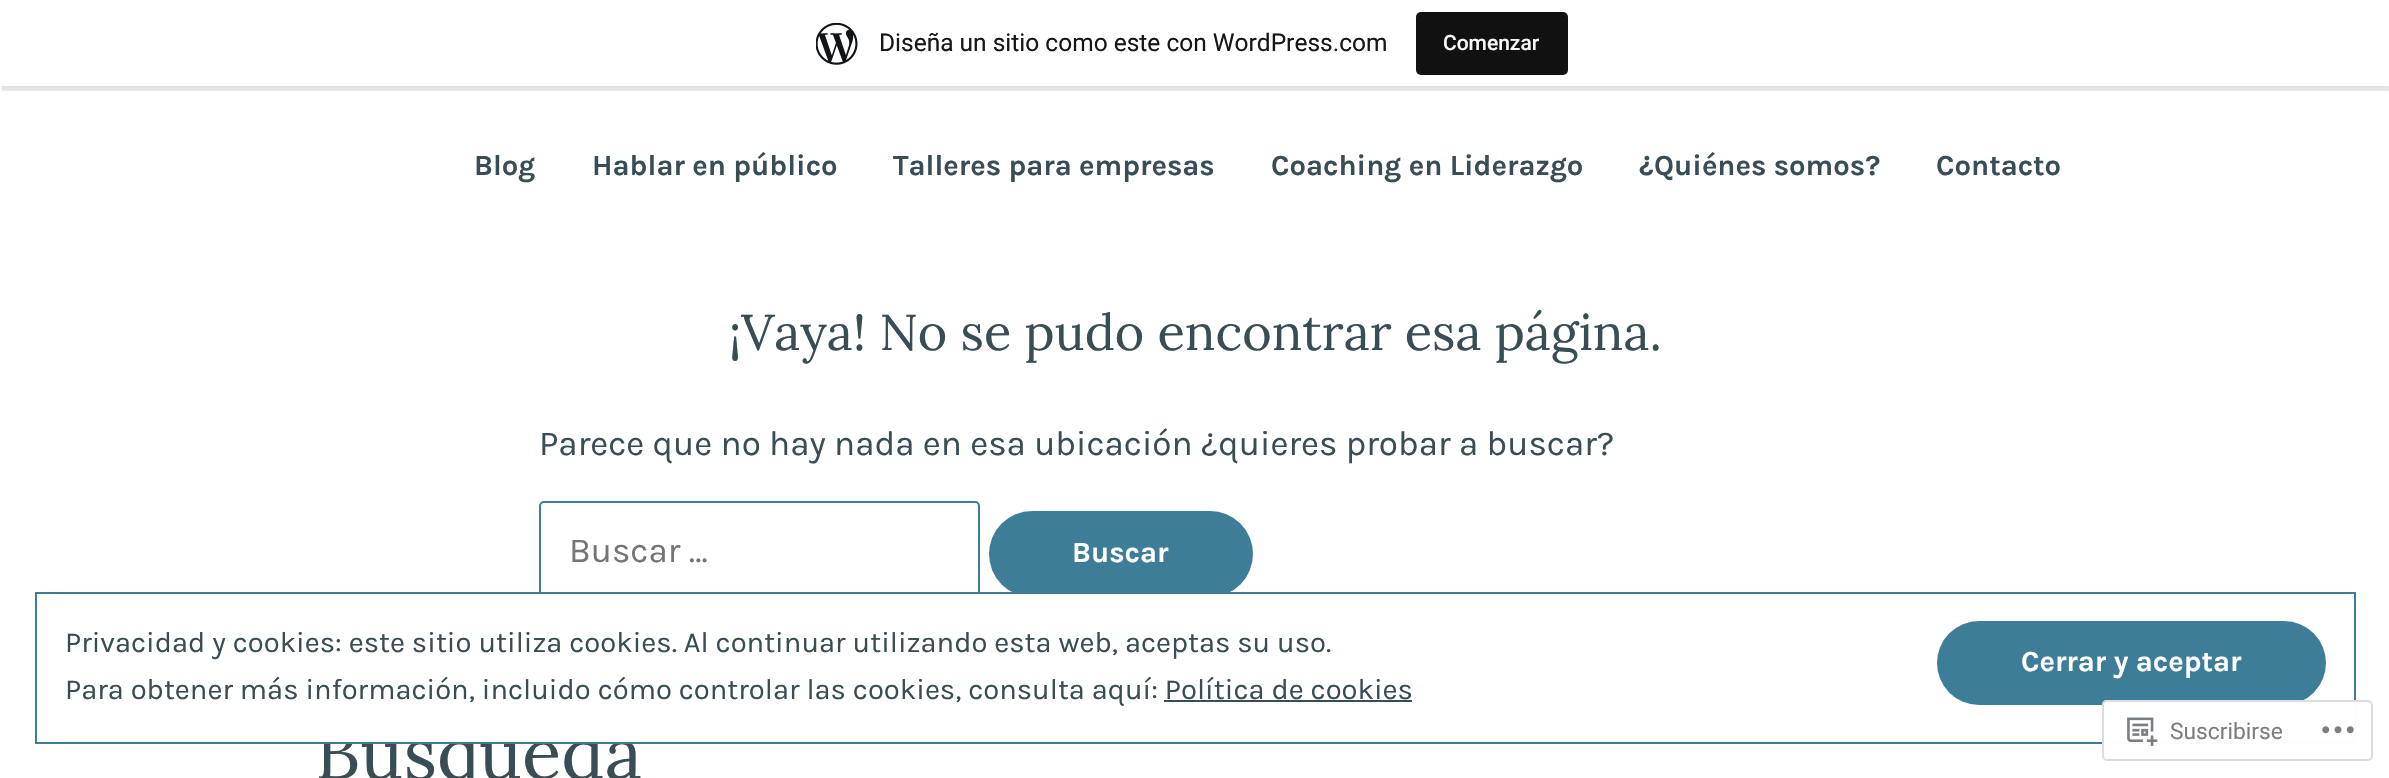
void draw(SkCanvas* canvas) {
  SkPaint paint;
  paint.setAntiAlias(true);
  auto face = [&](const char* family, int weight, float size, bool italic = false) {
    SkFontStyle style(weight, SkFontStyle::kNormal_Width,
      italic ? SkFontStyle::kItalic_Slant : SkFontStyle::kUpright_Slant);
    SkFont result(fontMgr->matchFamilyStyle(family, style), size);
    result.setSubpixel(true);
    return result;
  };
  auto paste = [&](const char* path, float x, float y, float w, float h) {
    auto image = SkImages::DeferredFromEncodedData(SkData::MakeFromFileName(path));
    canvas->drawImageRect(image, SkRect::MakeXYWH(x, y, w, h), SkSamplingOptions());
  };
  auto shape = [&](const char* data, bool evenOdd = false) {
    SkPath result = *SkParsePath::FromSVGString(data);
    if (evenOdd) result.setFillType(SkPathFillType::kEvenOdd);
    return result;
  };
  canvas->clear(0xffffffff);
  paint.setColor(0x0d000000);
  paint.setMaskFilter(SkMaskFilter::MakeBlur(kNormal_SkBlurStyle, 2));
  canvas->drawRect(SkRect::MakeXYWH(0, 2, 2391, 86), paint);
  paint.setMaskFilter(nullptr);
  paint.setColor(0x14000000);
  canvas->drawPath(shape("M2 86V91H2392V5H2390V86Z"), paint);
  paint.setColor(0xffffffff);
  canvas->drawRect(SkRect::MakeXYWH(0, 0, 2389, 86), paint);
  paste("img/1.png", 816, 23, 42, 42);
  paint.setColor(0xff111111);
  canvas->drawRoundRect(SkRect::MakeXYWH(1416, 12, 152, 63), 5, 5, paint);
  paint.setStroke(true);
  paint.setStrokeWidth(2);
  paint.setColor(0xff3e7d98);
  canvas->drawRoundRect(SkRect::MakeXYWH(540, 502, 439, 97), 4, 4, paint);
  paint.setStroke(false);
  canvas->drawRoundRect(SkRect::MakeXYWH(989, 511, 264, 86), 43, 43, paint);
  auto f0 = face("Roboto", 400, 24.5f);
  paint.setColor(0xff171717);
  canvas->drawString("Diseña un sitio como este con WordPress.com", 879, 51, f0, paint);
  auto f1 = face("Roboto", 500, 21);
  paint.setColor(0xfff6f7f7);
  canvas->drawString("Comenzar", 1443, 50, f1, paint);
  auto f2 = face("Karla", 700, 29.15f);
  paint.setColor(0xff394d55);
  {
    const struct { const char* s; float x, y; } items[] = {
      {"Blog", 474, 175},
      {"Hablar en público", 592, 175},
      {"Talleres para empresas", 893, 175},
      {"Coaching en Liderazgo", 1271, 175},
      {"¿Quiénes somos?", 1639, 175},
      {"Contacto", 1936, 175},
    };
    for (auto [s, x, y] : items) {
      canvas->drawString(s, x, y, f2, paint);
    }
  }
  auto f3 = face("Lora", 400, 50.4f);
  canvas->drawString("¡Vaya! No se pudo encontrar esa página.", 729, 350, f3, paint);
  auto f4 = face("Karla", 400, 35);
  canvas->drawString("Parece que no hay nada en esa ubicación ¿quieres probar a buscar?", 539, 455, f4, paint);
  paint.setColor(0xff757575);
  canvas->drawString("Buscar …", 569, 562, f4, paint);
  paint.setColor(0xffffffff);
  canvas->drawString("Buscar", 1072, 562, f2, paint);
  auto f5 = face("Lora", 400, 72.5f);
  paint.setColor(0xff394d55);
  canvas->drawString("Búsqueda", 315, 779, f5, paint);
  paint.setColor(0xffffffff);
  canvas->drawRect(SkRect::MakeXYWH(319, 594, 907, 148), paint);
  paint.setStroke(true);
  paint.setColor(0xff3e7d98);
  canvas->drawRect(SkRect::MakeXYWH(36, 593, 2319, 150), paint);
  auto f6 = face("Karla", 400, 29.15f);
  paint.setStroke(false);
  paint.setColor(0xff394d55);
  canvas->drawString("Privacidad y cookies: este sitio utiliza cookies. Al continuar utilizando esta web, aceptas su uso.", 65, 652, f6, paint);
  paint.setColor(0xff3e7d98);
  canvas->drawRoundRect(SkRect::MakeXYWH(1937, 621, 389, 84), 42, 42, paint);
  paint.setColor(0xffffffff);
  canvas->drawString("Cerrar y aceptar", 2021, 671, f2, paint);
  paint.setColor(0xff394d55);
  canvas->drawString("Para obtener más información, incluido cómo controlar las cookies, consulta aquí: Política de cookies", 65, 699, f6, paint);
  canvas->drawRect(SkRect::MakeXYWH(1164, 700, 248, 2), paint);
  paint.setColor(0xfaffffff);
  canvas->drawRoundRect(SkRect::MakeXYWH(2102, 700, 271, 61), 5, 5, paint);
  paint.setStroke(true);
  paint.setColor(0xfadcdcde);
  canvas->drawRoundRect(SkRect::MakeXYWH(2103, 701, 269, 59), 4, 4, paint);
  paste("img/2.png", 2127, 717, 31, 29);
  auto f7 = face("Roboto", 400, 22.75f);
  paint.setStroke(false);
  paint.setColor(0xff7b7f85);
  canvas->drawString("Suscribirse", 2170, 739, f7, paint);
  paste("img/3.png", 2322, 726, 32, 8);
}
